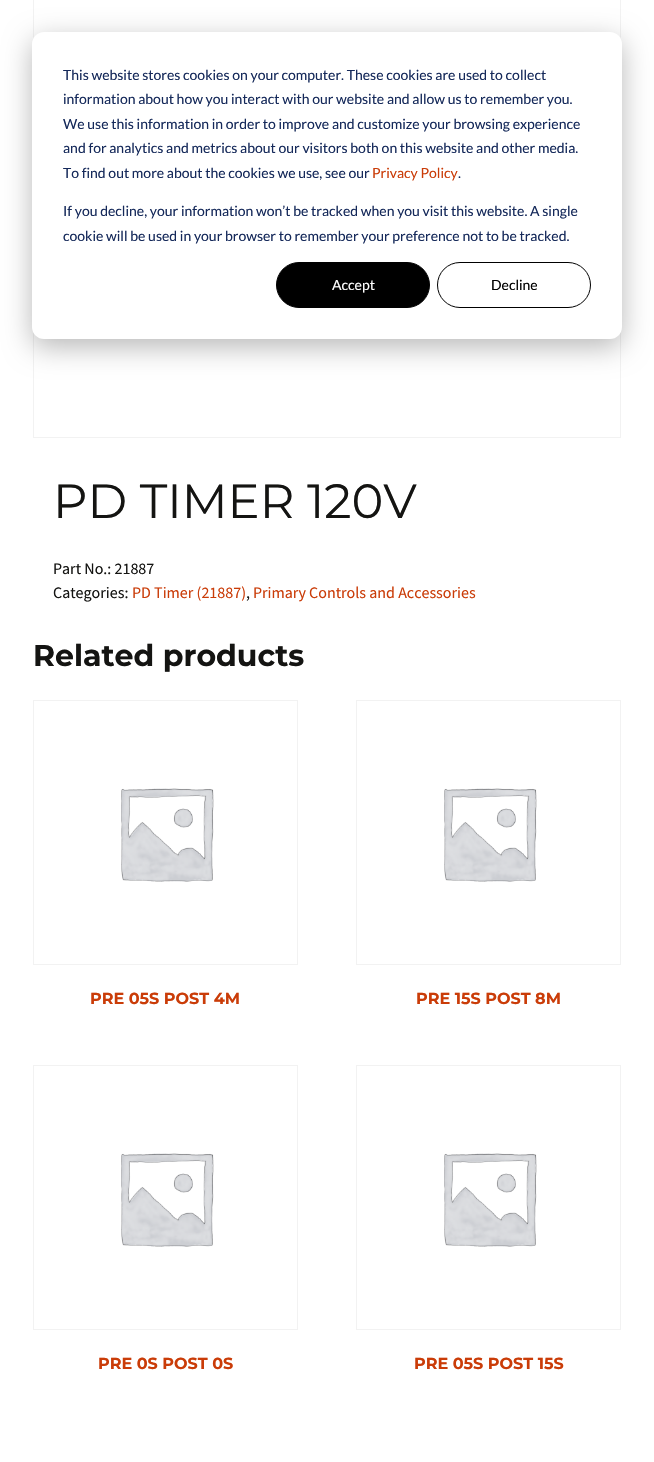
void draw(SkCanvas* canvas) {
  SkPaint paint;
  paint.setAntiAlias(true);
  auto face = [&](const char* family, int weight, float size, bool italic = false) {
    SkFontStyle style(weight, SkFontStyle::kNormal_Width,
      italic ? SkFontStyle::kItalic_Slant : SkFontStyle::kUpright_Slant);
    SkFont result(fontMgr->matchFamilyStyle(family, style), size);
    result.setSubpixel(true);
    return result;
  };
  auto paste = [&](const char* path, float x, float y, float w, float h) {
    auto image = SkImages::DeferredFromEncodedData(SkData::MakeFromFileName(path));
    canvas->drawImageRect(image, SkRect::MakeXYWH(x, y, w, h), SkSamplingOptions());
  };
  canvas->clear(0xffffffff);
  paint.setStroke(true);
  paint.setStrokeWidth(1);
  paint.setColor(0xfff2f2f2);
  canvas->drawRect(SkRect::MakeXYWH(33.5f, -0.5f, 587, 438), paint);
  paint.setStroke(false);
  paint.setColor(0x47000000);
  paint.setMaskFilter(SkMaskFilter::MakeBlur(kNormal_SkBlurStyle, 14));
  canvas->drawRoundRect(SkRect::MakeXYWH(32, 40, 590, 307), 12, 12, paint);
  paint.setMaskFilter(nullptr);
  paint.setColor(0xffffffff);
  canvas->drawRoundRect(SkRect::MakeXYWH(32, 32, 590, 307), 12, 12, paint);
  paint.setColor(0xff000000);
  canvas->drawRoundRect(SkRect::MakeXYWH(276.5f, 262.5f, 153, 45), 22.5f, 22.5f, paint);
  paint.setStroke(true);
  canvas->drawRoundRect(SkRect::MakeXYWH(276.5f, 262.5f, 153, 45), 22.5f, 22.5f, paint);
  canvas->drawRoundRect(SkRect::MakeXYWH(437.5f, 262.5f, 153, 45), 22.5f, 22.5f, paint);
  paint.setColor(0xfff2f2f2);
  canvas->drawRect(SkRect::MakeXYWH(33.5f, 700.5f, 264, 264), paint);
  paste("img/1.png", 121, 788, 93, 94);
  canvas->drawRect(SkRect::MakeXYWH(356.5f, 700.5f, 264, 264), paint);
  paste("img/1.png", 444, 788, 93, 94);
  canvas->drawRect(SkRect::MakeXYWH(33.5f, 1065.5f, 264, 264), paint);
  paste("img/1.png", 121, 1153, 93, 94);
  canvas->drawRect(SkRect::MakeXYWH(356.5f, 1065.5f, 264, 264), paint);
  paste("img/1.png", 444, 1153, 93, 94);
  auto f0 = face("Lato", 400, 14);
  paint.setStroke(false);
  paint.setColor(0xff15295a);
  {
    const struct { const char* s; float x, y; } items[] = {
      {"This website stores cookies on your computer. These cookies are used to collect", 63, 80},
      {"information about how you interact with our website and allow us to remember you.", 63, 104},
      {"We use this information in order to improve and customize your browsing experience", 63, 129},
      {"and for analytics and metrics about our visitors both on this website and other media.", 63, 153},
      {"To find out more about the cookies we use, see our", 63, 178},
    };
    for (auto [s, x, y] : items) {
      canvas->drawString(s, x, y, f0, paint);
    }
  }
  paint.setColor(0xffca3c08);
  canvas->drawString("Privacy Policy", 372, 178, f0, paint);
  paint.setColor(0xff15295a);
  {
    const struct { const char* s; float x, y; } items[] = {
      {".", 458, 178},
      {"If you decline, your information won’t be tracked when you visit this website. A single", 63, 216},
      {"cookie will be used in your browser to remember your preference not to be tracked.", 63, 241},
    };
    for (auto [s, x, y] : items) {
      canvas->drawString(s, x, y, f0, paint);
    }
  }
  paint.setColor(0xffffffff);
  canvas->drawString("Accept", 332, 290, f0, paint);
  paint.setColor(0xff000000);
  canvas->drawString("Decline", 491, 290, f0, paint);
  auto f1 = face("Montserrat", 400, 48);
  paint.setColor(0xff141412);
  canvas->drawString("PD TIMER 120V", 53, 518, f1, paint);
  auto f2 = face("Source Sans Pro", 400, 16);
  canvas->drawString("Part No.: 21887", 53, 574, f2, paint);
  canvas->drawString("Categories:", 53, 598, f2, paint);
  paint.setColor(0xffca3c08);
  canvas->drawString("PD Timer (21887)", 132, 598, f2, paint);
  paint.setColor(0xff141412);
  canvas->drawString(",", 246, 598, f2, paint);
  paint.setColor(0xffca3c08);
  canvas->drawString("Primary Controls and Accessories", 253, 598, f2, paint);
  auto f3 = face("Montserrat", 700, 30);
  paint.setColor(0xff141412);
  canvas->drawString("Related products", 33, 666, f3, paint);
  auto f4 = face("Montserrat", 700, 16);
  paint.setColor(0xffca3c08);
  {
    const struct { const char* s; float x, y; } items[] = {
      {"PRE 05S POST 4M", 90, 1004},
      {"PRE 15S POST 8M", 416, 1004},
      {"PRE 0S POST 0S", 98, 1369},
      {"PRE 05S POST 15S", 414, 1369},
    };
    for (auto [s, x, y] : items) {
      canvas->drawString(s, x, y, f4, paint);
    }
  }
}
